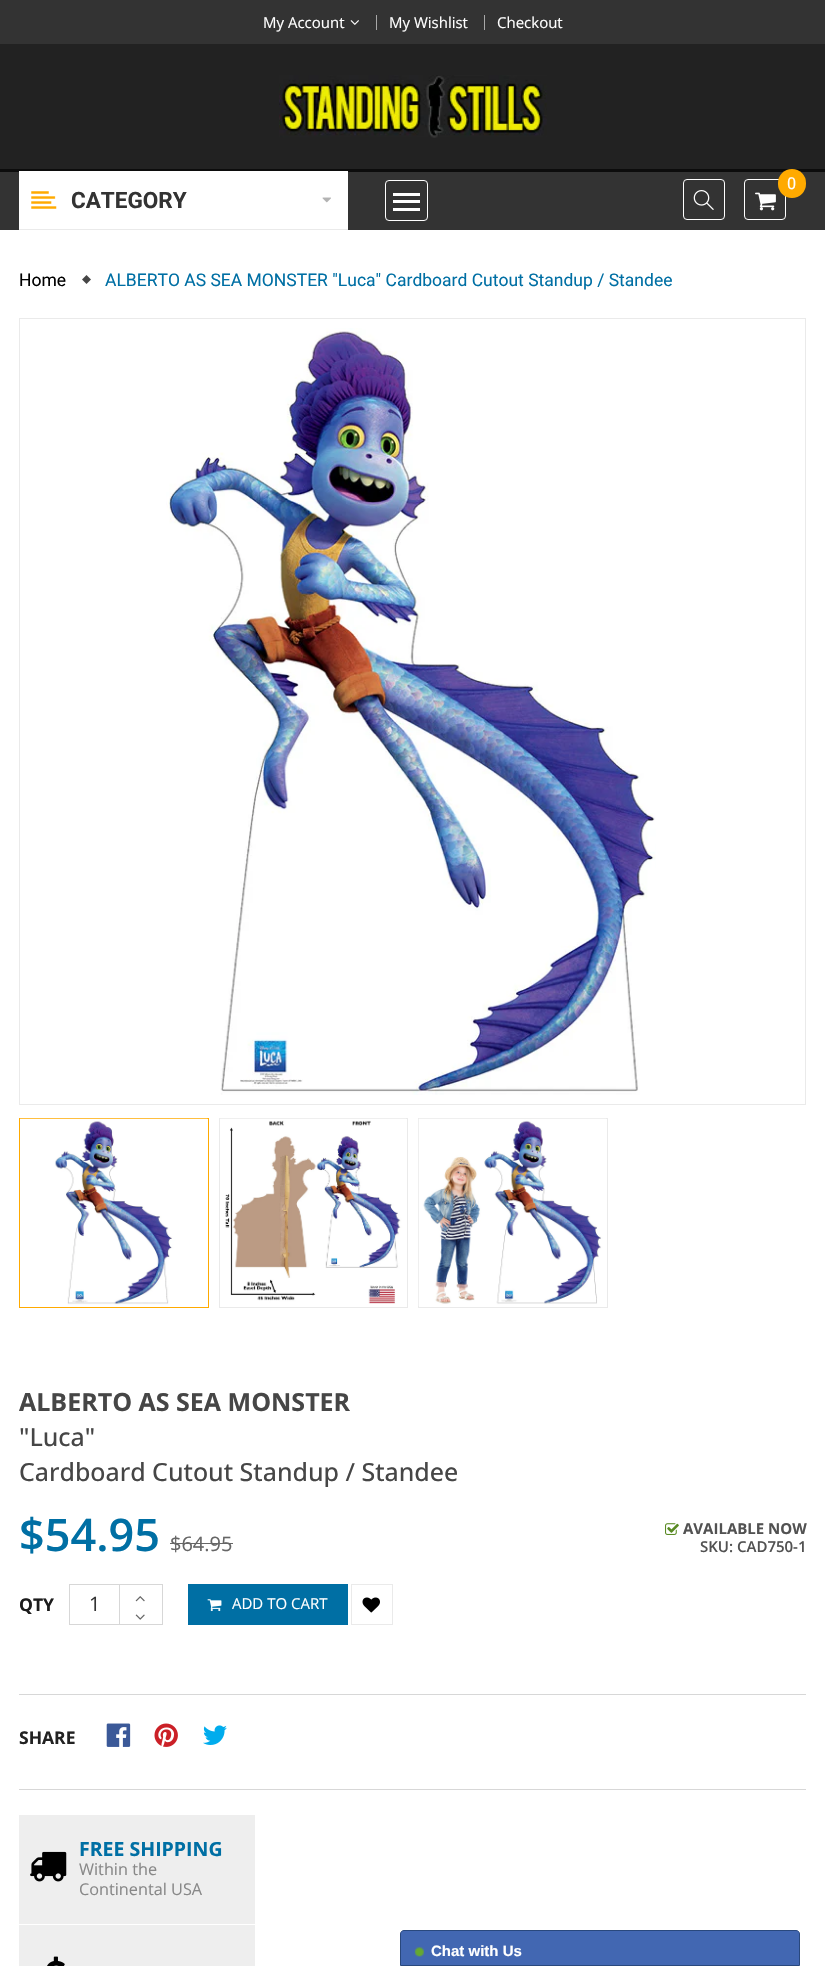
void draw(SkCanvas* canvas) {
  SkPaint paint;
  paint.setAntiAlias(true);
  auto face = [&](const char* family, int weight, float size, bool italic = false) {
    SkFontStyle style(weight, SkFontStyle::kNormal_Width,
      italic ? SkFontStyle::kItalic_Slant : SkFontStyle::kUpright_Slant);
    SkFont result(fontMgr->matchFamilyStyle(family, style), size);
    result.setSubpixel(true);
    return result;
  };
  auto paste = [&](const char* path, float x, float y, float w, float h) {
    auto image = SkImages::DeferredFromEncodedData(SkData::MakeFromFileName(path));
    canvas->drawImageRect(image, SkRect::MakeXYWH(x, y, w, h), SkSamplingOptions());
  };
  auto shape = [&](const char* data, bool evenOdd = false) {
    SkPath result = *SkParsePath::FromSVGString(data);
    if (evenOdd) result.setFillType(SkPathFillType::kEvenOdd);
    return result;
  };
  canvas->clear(0xffffffff);
  paint.setColor(0xff333333);
  canvas->drawRect(SkRect::MakeXYWH(0, 0, 825, 44), paint);
  paste("img/1.png", 350, 20, 9, 5);
  {
    const struct { float x, y, w, h; SkColor color; } items[] = {
      {376, 15, 1, 15, 0xffa8a8a8},
      {484, 15, 1, 15, 0xffa8a8a8},
      {0, 44, 825, 125, 0xff222222},
      {0, 169, 825, 3, 0xff0c0c0c},
    };
    for (auto [x, y, w, h, color] : items) {
      paint.setColor(color);
      canvas->drawRect(SkRect::MakeXYWH(x, y, w, h), paint);
    }
  }
  paste("img/2.png", 279, 75, 268, 63);
  paint.setColor(0xff333333);
  canvas->drawRect(SkRect::MakeXYWH(0, 172, 825, 58), paint);
  paint.setStroke(true);
  paint.setStrokeWidth(1);
  paint.setColor(0xffffffff);
  canvas->drawRoundRect(SkRect::MakeXYWH(683.5f, 179.5f, 41, 40), 3.5f, 3.5f, paint);
  paste("img/3.png", 693, 190, 21, 20);
  canvas->drawRoundRect(SkRect::MakeXYWH(744.5f, 179.5f, 41, 40), 3.5f, 3.5f, paint);
  paste("img/4.png", 755, 192, 21, 19);
  paint.setStroke(false);
  paint.setColor(0xffffaa00);
  canvas->drawRoundRect(SkRect::MakeXYWH(778, 169, 28, 29), 14, 14, paint);
  paint.setColor(0xffeaeaea);
  canvas->drawRect(SkRect::MakeXYWH(19, 229, 329, 1), paint);
  paint.setColor(0xffffffff);
  canvas->drawRect(SkRect::MakeXYWH(19, 171, 329, 58), paint);
  paste("img/5.png", 31, 191, 26, 18);
  paste("img/6.png", 322, 197, 9, 6);
  paint.setStroke(true);
  canvas->drawRoundRect(SkRect::MakeXYWH(385.5f, 180.5f, 42, 40), 3.5f, 3.5f, paint);
  paint.setStroke(false);
  {
    const struct { float x, y, w, h; SkColor color; } items[] = {
      {393, 193, 27, 3, 0xffffffff},
      {393, 200, 27, 3, 0xffffffff},
      {393, 208, 27, 3, 0xffffffff},
    };
    for (auto [x, y, w, h, color] : items) {
      paint.setColor(color);
      canvas->drawRect(SkRect::MakeXYWH(x, y, w, h), paint);
    }
  }
  paint.setColor(0xff464646);
  canvas->drawPath(shape("M86.5 275L91 279.5L86.5 284L82 279.5Z"), paint);
  paint.setStroke(true);
  paint.setColor(0xffeaeaea);
  canvas->drawRect(SkRect::MakeXYWH(19.5f, 318.5f, 786, 786), paint);
  paste("img/7.png", 166, 328, 490, 767);
  paint.setColor(0xffffaa00);
  canvas->drawRect(SkRect::MakeXYWH(19.5f, 1118.5f, 189, 189), paint);
  paste("img/8.png", 20, 1118, 188, 187);
  paint.setColor(0xffeaeaea);
  canvas->drawRect(SkRect::MakeXYWH(219.5f, 1118.5f, 188, 189), paint);
  paste("img/9.png", 220, 1118, 186, 186);
  canvas->drawRect(SkRect::MakeXYWH(418.5f, 1118.5f, 189, 189), paint);
  paste("img/10.png", 418, 1118, 188, 188);
  paint.setStroke(false);
  paint.setColor(0xff666666);
  canvas->drawRect(SkRect::MakeXYWH(170, 1543, 63, 1), paint);
  paste("img/11.png", 665, 1523, 14, 12);
  paint.setStroke(true);
  paint.setColor(0xffd7d7d7);
  canvas->drawRect(SkRect::MakeXYWH(69.5f, 1584.5f, 93, 40), paint);
  paint.setStroke(false);
  canvas->drawRect(SkRect::MakeXYWH(119, 1585, 1, 39), paint);
  paste("img/12.png", 135, 1596, 10, 6);
  paste("img/13.png", 135, 1614, 10, 6);
  paint.setColor(0xff006fa4);
  canvas->drawRect(SkRect::MakeXYWH(188, 1584, 160, 41), paint);
  paste("img/14.png", 207, 1599, 15, 13);
  paint.setStroke(true);
  paint.setColor(0xffeaeaea);
  canvas->drawRect(SkRect::MakeXYWH(351.5f, 1584.5f, 41, 40), paint);
  paste("img/15.png", 362, 1597, 18, 16);
  paint.setStroke(false);
  paint.setColor(0xffd7d7d7);
  canvas->drawRect(SkRect::MakeXYWH(19, 1694, 787, 1), paint);
  canvas->drawRect(SkRect::MakeXYWH(19, 1789, 787, 1), paint);
  paste("img/16.png", 106, 1723, 25, 24);
  paste("img/17.png", 154, 1723, 24, 24);
  paste("img/18.png", 203, 1725, 24, 20);
  paint.setColor(0xffeeeeee);
  canvas->drawRect(SkRect::MakeXYWH(19, 1815, 236, 151), paint);
  paint.setColor(0xffffffff);
  canvas->drawRect(SkRect::MakeXYWH(19, 1924, 236, 1), paint);
  paste("img/19.png", 30, 1851, 37, 31);
  paste("img/20.png", 47, 1956, 18, 10);
  paint.setColor(0xff4267b2);
  canvas->drawPath(shape("M404 1930.5H796C798 1930.5 799.5 1932 799.5 1934V1965.5H400.5V1934C400.5 1932 402 1930.5 404 1930.5Z"), paint);
  paint.setStroke(true);
  paint.setColor(0xff29487d);
  canvas->drawPath(shape("M404 1930.5H796C798 1930.5 799.5 1932 799.5 1934V1965.5H400.5V1934C400.5 1932 402 1930.5 404 1930.5Z"), paint);
  paste("img/21.png", 414, 1947, 10, 10);
  auto f0 = face("Open Sans", 400, 15);
  paint.setStroke(false);
  paint.setColor(0xffffffff);
  {
    const struct { const char* s; float x, y; } items[] = {
      {"My Account", 263, 28},
      {"My Wishlist", 389, 28},
      {"Checkout", 497, 28},
    };
    for (auto [s, x, y] : items) {
      canvas->drawString(s, x, y, f0, paint);
    }
  }
  auto f1 = face("Roboto", 400, 16.25f);
  canvas->drawString("0", 787, 189, f1, paint);
  auto f2 = face("Roboto", 700, 22.5f);
  paint.setColor(0xff333333);
  canvas->drawString("CATEGORY", 71, 208, f2, paint);
  auto f3 = face("Roboto", 400, 17.5f);
  paint.setColor(0xff000000);
  canvas->drawString("Home", 19, 286, f3, paint);
  paint.setColor(0xff006fa4);
  canvas->drawString("ALBERTO AS SEA MONSTER \"Luca\" Cardboard Cutout Standup / Standee", 105, 286, f3, paint);
  auto f4 = face("Open Sans", 700, 25);
  paint.setColor(0xff464646);
  canvas->drawString("ALBERTO AS SEA MONSTER", 19, 1411, f4, paint);
  auto f5 = face("Open Sans", 500, 25);
  canvas->drawString("\"Luca\"", 19, 1446, f5, paint);
  canvas->drawString("Cardboard Cutout Standup / Standee", 19, 1481, f5, paint);
  auto f6 = face("Open Sans", 600, 45);
  paint.setColor(0xff006fa4);
  canvas->drawString("$54.95", 19, 1551, f6, paint);
  auto f7 = face("Open Sans", 400, 20);
  paint.setColor(0xff666666);
  canvas->drawString("$64.95", 170, 1551, f7, paint);
  auto f8 = face("Open Sans", 700, 15);
  paint.setColor(0xff525252);
  canvas->drawString("AVAILABLE NOW", 683, 1534, f8, paint);
  auto f9 = face("Open Sans", 600, 15);
  canvas->drawString("SKU: CAD750-1", 700, 1552, f9, paint);
  auto f10 = face("Open Sans", 700, 17.5f);
  paint.setColor(0xff1c1c1c);
  canvas->drawString("QTY", 19, 1611, f10, paint);
  paint.setColor(0xff333333);
  canvas->drawString("1", 89, 1611, f7, paint);
  paint.setColor(0xffffffff);
  canvas->drawString("ADD TO CART", 232, 1609, f0, paint);
  paint.setColor(0xff222222);
  canvas->drawString("SHARE", 19, 1744, f10, paint);
  auto f11 = face("Open Sans", 700, 19.5f);
  paint.setColor(0xff006fa4);
  canvas->drawString("FREE SHIPPING", 79, 1856, f11, paint);
  auto f12 = face("Open Sans", 400, 16.25f);
  paint.setColor(0xff888888);
  canvas->drawString("Within the", 79, 1875, f12, paint);
  canvas->drawString("Continental USA", 79, 1895, f12, paint);
  auto f13 = face("Liberation Sans", 700, 15);
  paint.setColor(0xffffffff);
  canvas->drawString("Chat with Us", 431, 1956, f13, paint);
}
